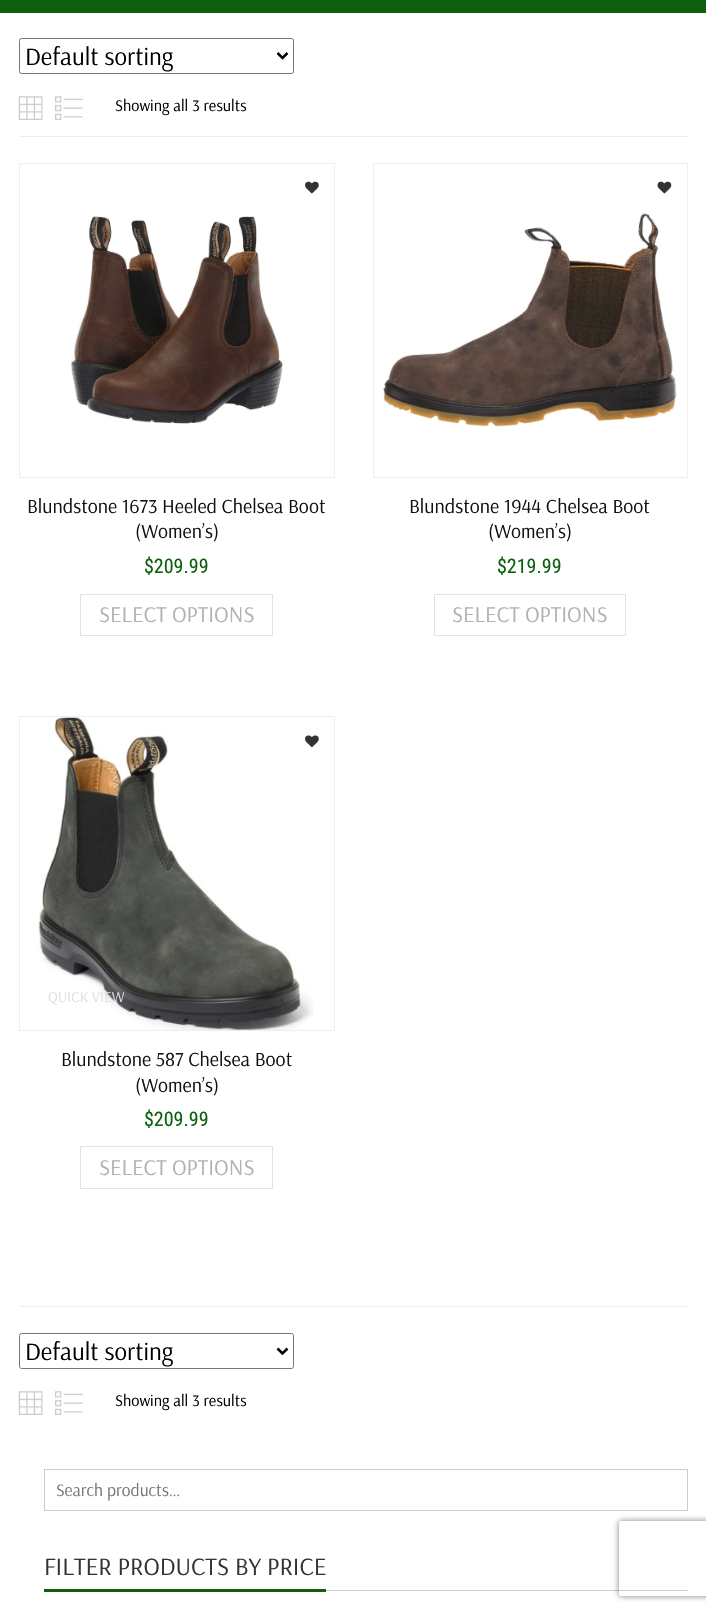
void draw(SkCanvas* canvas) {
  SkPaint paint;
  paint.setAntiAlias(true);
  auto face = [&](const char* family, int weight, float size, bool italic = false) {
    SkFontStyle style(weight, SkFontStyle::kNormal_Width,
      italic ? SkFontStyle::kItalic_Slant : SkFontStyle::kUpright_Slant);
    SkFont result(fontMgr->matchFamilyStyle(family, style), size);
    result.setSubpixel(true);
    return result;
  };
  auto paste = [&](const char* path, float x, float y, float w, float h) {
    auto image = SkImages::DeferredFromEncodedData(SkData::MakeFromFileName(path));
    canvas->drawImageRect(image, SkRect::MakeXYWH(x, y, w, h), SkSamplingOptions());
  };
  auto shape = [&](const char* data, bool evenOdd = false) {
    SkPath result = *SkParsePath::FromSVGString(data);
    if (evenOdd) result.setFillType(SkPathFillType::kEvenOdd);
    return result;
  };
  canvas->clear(0xffffffff);
  paint.setColor(0xff0c600e);
  canvas->drawRect(SkRect::MakeXYWH(0, 0, 706, 13), paint);
  paint.setStroke(true);
  paint.setStrokeWidth(1);
  paint.setColor(0xff767676);
  canvas->drawRoundRect(SkRect::MakeXYWH(19.5f, 38.5f, 274, 35), 2, 2, paint);
  paint.setStrokeWidth(2.5f);
  paint.setColor(0xff000000);
  canvas->drawPath(shape("M277.5 53L282.5 58L287.5 53"), paint);
  paste("img/1.png", 18, 96, 25, 24);
  paste("img/2.png", 55, 96, 28, 24);
  paint.setStroke(false);
  paint.setColor(0xffeeeeee);
  canvas->drawRect(SkRect::MakeXYWH(19, 136, 669, 1), paint);
  paint.setStroke(true);
  paint.setStrokeWidth(1);
  canvas->drawRect(SkRect::MakeXYWH(19.5f, 163.5f, 315, 314), paint);
  paste("img/3.png", 71, 216, 212, 208);
  paste("img/4.png", 305, 181, 14, 13);
  paint.setColor(0xffe2e2e2);
  canvas->drawRect(SkRect::MakeXYWH(80.5f, 594.5f, 192, 41), paint);
  paint.setColor(0xffeeeeee);
  canvas->drawRect(SkRect::MakeXYWH(373.5f, 163.5f, 314, 314), paint);
  paste("img/5.png", 383, 213, 294, 214);
  paste("img/6.png", 657, 181, 15, 13);
  paint.setColor(0xffe2e2e2);
  canvas->drawRect(SkRect::MakeXYWH(434.5f, 594.5f, 191, 41), paint);
  paint.setColor(0xffeeeeee);
  canvas->drawRect(SkRect::MakeXYWH(19.5f, 716.5f, 315, 314), paint);
  paste("img/7.png", 38, 717, 276, 313);
  paste("img/8.png", 305, 735, 14, 13);
  paint.setColor(0xffe2e2e2);
  canvas->drawRect(SkRect::MakeXYWH(80.5f, 1146.5f, 192, 42), paint);
  paint.setStroke(false);
  paint.setColor(0xffeeeeee);
  canvas->drawRect(SkRect::MakeXYWH(19, 1306, 669, 1), paint);
  paint.setStroke(true);
  paint.setColor(0xff767676);
  canvas->drawRoundRect(SkRect::MakeXYWH(19.5f, 1333.5f, 274, 35), 2, 2, paint);
  paint.setStrokeWidth(2.5f);
  paint.setColor(0xff000000);
  canvas->drawPath(shape("M277.5 1348.5L282.5 1353.5L287.5 1348.5"), paint);
  paste("img/1.png", 18, 1391, 25, 24);
  paste("img/2.png", 55, 1391, 28, 24);
  paint.setStrokeWidth(1);
  paint.setColor(0xffcccccc);
  canvas->drawRect(SkRect::MakeXYWH(44.5f, 1469.5f, 643, 41), paint);
  paint.setStroke(false);
  canvas->drawRect(SkRect::MakeXYWH(326, 1590, 362, 1), paint);
  paint.setColor(0xff0c600e);
  canvas->drawRect(SkRect::MakeXYWH(44, 1589, 282, 3), paint);
  canvas->save();
  canvas->clipPath(shape("M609 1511H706V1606H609ZM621.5 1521H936.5C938 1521 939 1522 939 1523.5V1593.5C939 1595 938 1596 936.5 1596H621.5C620 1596 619 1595 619 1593.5V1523.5C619 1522 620 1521 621.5 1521Z", true), true);
  paint.setColor(0xff808080);
  paint.setMaskFilter(SkMaskFilter::MakeBlur(kNormal_SkBlurStyle, 3));
  canvas->drawRoundRect(SkRect::MakeXYWH(619, 1521, 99, 75), 2.5f, 2.5f, paint);
  paint.setMaskFilter(nullptr);
  canvas->restore();
  auto f0 = face("Arsenal", 400, 25);
  paint.setColor(0xff000000);
  canvas->drawString("Default sorting", 25, 65, f0, paint);
  auto f1 = face("Arsenal", 400, 16.25f);
  canvas->drawString("Showing all 3 results", 115, 111, f1, paint);
  auto f2 = face("Arsenal", 400, 20);
  paint.setColor(0xff111111);
  canvas->drawString("Blundstone 1673 Heeled Chelsea Boot", 27, 513, f2, paint);
  canvas->drawString("(Women’s)", 135, 538, f2, paint);
  auto f3 = face("Roboto Condensed", 400, 20);
  paint.setColor(0xff0c600e);
  canvas->drawString("$209.99", 144, 573, f3, paint);
  auto f4 = face("Arsenal", 400, 22.5f);
  paint.setColor(0xffb2b2b2);
  canvas->drawString("SELECT OPTIONS", 99, 622, f4, paint);
  paint.setColor(0xff111111);
  canvas->drawString("Blundstone 1944 Chelsea Boot", 409, 513, f2, paint);
  canvas->drawString("(Women’s)", 488, 538, f2, paint);
  paint.setColor(0xff0c600e);
  canvas->drawString("$219.99", 497, 573, f3, paint);
  paint.setColor(0xffb2b2b2);
  canvas->drawString("SELECT OPTIONS", 452, 622, f4, paint);
  auto f5 = face("Arsenal", 400, 15);
  paint.setColor(0xffdfdfdf);
  canvas->drawString("QUICK VIEW", 48, 1002, f5, paint);
  paint.setColor(0xff111111);
  canvas->drawString("Blundstone 587 Chelsea Boot", 61, 1066, f2, paint);
  canvas->drawString("(Women’s)", 135, 1092, f2, paint);
  paint.setColor(0xff0c600e);
  canvas->drawString("$209.99", 144, 1126, f3, paint);
  paint.setColor(0xffb2b2b2);
  canvas->drawString("SELECT OPTIONS", 99, 1175, f4, paint);
  paint.setColor(0xff000000);
  canvas->drawString("Default sorting", 25, 1360, f0, paint);
  canvas->drawString("Showing all 3 results", 115, 1406, f1, paint);
  auto f6 = face("Arsenal", 400, 17.5f);
  paint.setColor(0xff757575);
  canvas->drawString("Search products…", 56, 1496, f6, paint);
  paint.setColor(0xff333333);
  canvas->drawString("FILTER PRODUCTS BY PRICE", 44, 1575, f0, paint);
}
